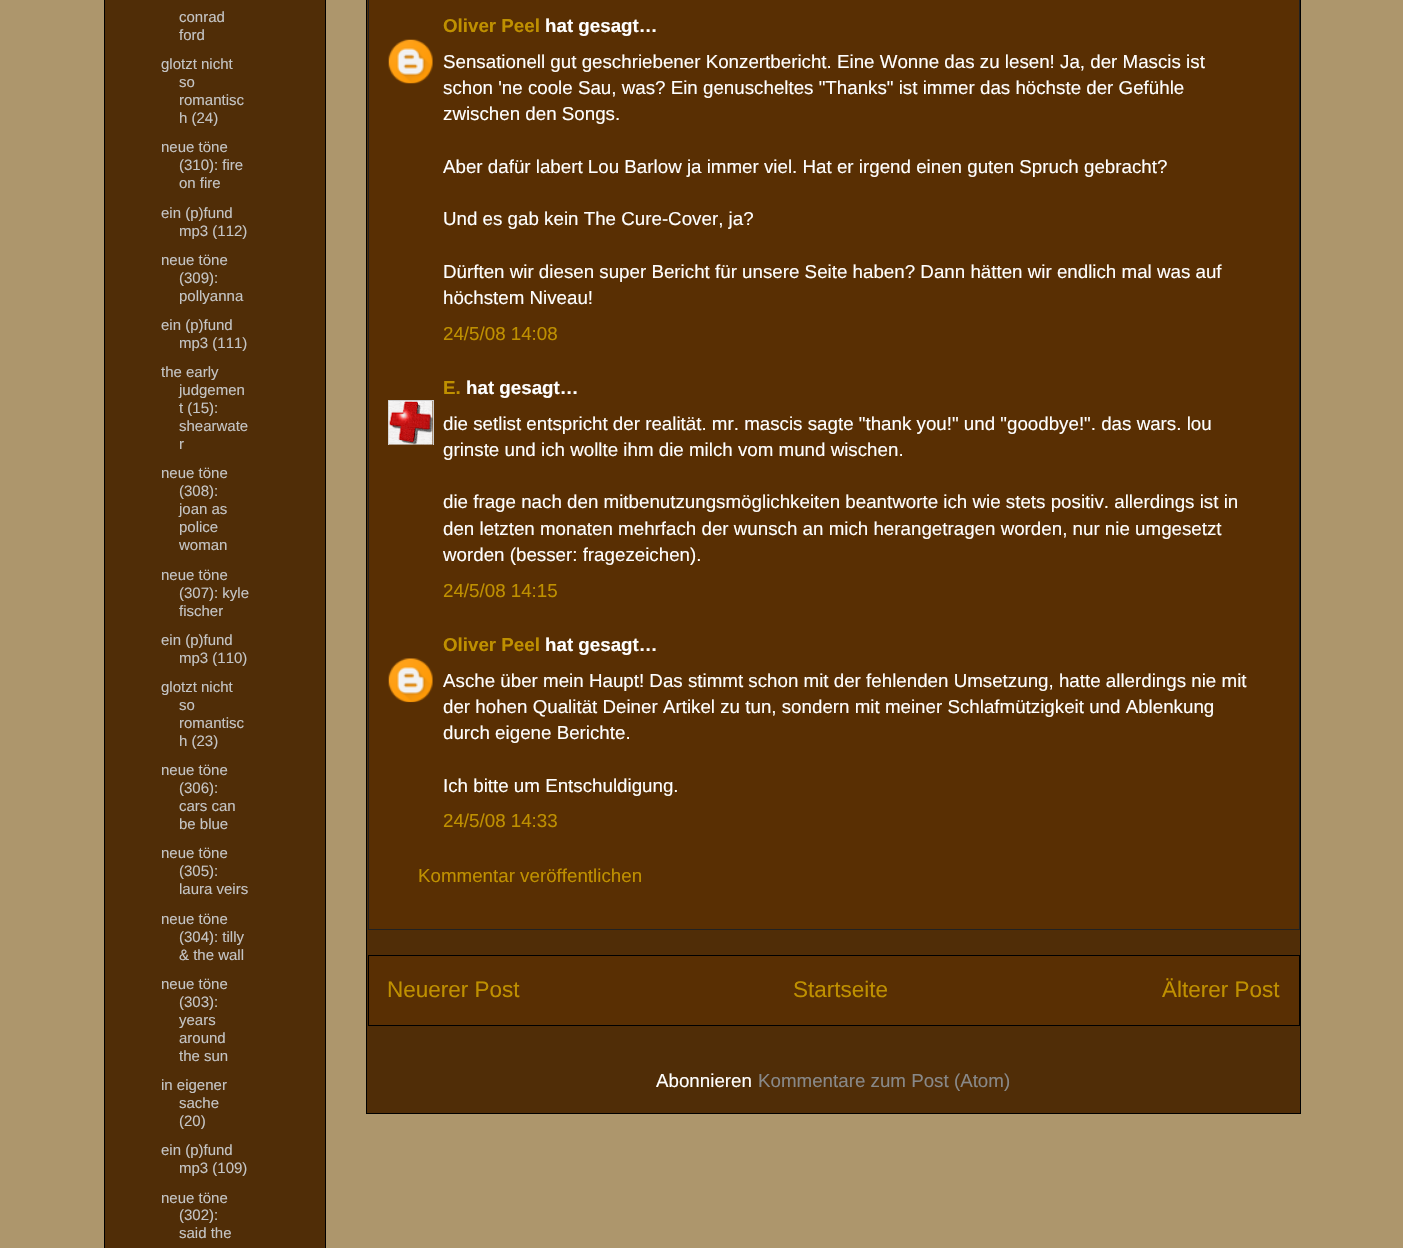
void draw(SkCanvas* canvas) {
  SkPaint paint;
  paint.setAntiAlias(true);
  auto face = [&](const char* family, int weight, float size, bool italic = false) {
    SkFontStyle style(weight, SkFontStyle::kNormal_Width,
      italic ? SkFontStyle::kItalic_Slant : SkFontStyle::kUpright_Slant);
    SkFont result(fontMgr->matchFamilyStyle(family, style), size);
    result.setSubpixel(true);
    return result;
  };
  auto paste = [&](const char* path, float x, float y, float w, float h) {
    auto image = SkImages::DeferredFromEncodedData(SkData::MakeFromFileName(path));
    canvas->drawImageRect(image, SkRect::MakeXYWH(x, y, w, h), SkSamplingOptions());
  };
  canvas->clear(0xffad966c);
  paint.setColor(0xff502d07);
  canvas->drawRect(SkRect::MakeXYWH(104.5f, -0.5f, 221, 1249), paint);
  paint.setStroke(true);
  paint.setStrokeWidth(1);
  paint.setColor(0xff000000);
  canvas->drawRect(SkRect::MakeXYWH(104.5f, -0.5f, 221, 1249), paint);
  paint.setStroke(false);
  paint.setColor(0xff502d07);
  canvas->drawRect(SkRect::MakeXYWH(366.5f, -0.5f, 934, 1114), paint);
  paint.setStroke(true);
  paint.setColor(0xff000000);
  canvas->drawRect(SkRect::MakeXYWH(366.5f, -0.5f, 934, 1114), paint);
  paint.setStroke(false);
  paint.setColor(0xff592f03);
  canvas->drawRect(SkRect::MakeXYWH(368.5f, -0.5f, 931, 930), paint);
  paint.setStroke(true);
  paint.setColor(0xff222222);
  canvas->drawRect(SkRect::MakeXYWH(368.5f, -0.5f, 931, 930), paint);
  paste("img/1.png", 388, 39, 45, 45);
  canvas->save();
  canvas->clipRect(SkRect::MakeXYWH(388, 400, 46, 45));
  paint.setColor(0xffcccccc);
  canvas->drawRect(SkRect::MakeXYWH(388.5f, 400.5f, 45, 45), paint);
  canvas->restore();
  paste("img/2.png", 388, 401, 45, 44);
  paste("img/3.png", 388, 658, 45, 45);
  paint.setStroke(false);
  paint.setColor(0xff592f03);
  canvas->drawRect(SkRect::MakeXYWH(368.5f, 955.5f, 931, 70), paint);
  paint.setStroke(true);
  paint.setColor(0xff000000);
  canvas->drawRect(SkRect::MakeXYWH(368.5f, 955.5f, 931, 70), paint);
  auto f0 = face("Liberation Sans", 400, 15);
  paint.setStroke(false);
  paint.setColor(0xffc4c4c4);
  {
    const struct { const char* s; float x, y; } items[] = {
      {"conrad", 179, 22},
      {"ford", 179, 40},
      {"glotzt nicht", 161, 69},
      {"so", 179, 87},
      {"romantisc", 179, 105},
      {"h (24)", 179, 123},
      {"neue töne", 161, 152},
      {"(310): fire", 179, 170},
      {"on fire", 179, 188},
      {"ein (p)fund", 161, 218},
      {"mp3 (112)", 179, 236},
      {"neue töne", 161, 265},
      {"(309):", 179, 283},
      {"pollyanna", 179, 301},
      {"ein (p)fund", 161, 330},
      {"mp3 (111)", 179, 348},
      {"the early", 161, 377},
      {"judgemen", 179, 395},
      {"t (15):", 179, 413},
      {"shearwate", 179, 431},
      {"r", 179, 449},
      {"neue töne", 161, 478},
      {"(308):", 179, 496},
      {"joan as", 179, 514},
      {"police", 179, 532},
      {"woman", 179, 550},
      {"neue töne", 161, 580},
      {"(307): kyle", 179, 598},
      {"fischer", 179, 616},
      {"ein (p)fund", 161, 645},
      {"mp3 (110)", 179, 663},
      {"glotzt nicht", 161, 692},
      {"so", 179, 710},
      {"romantisc", 179, 728},
      {"h (23)", 179, 746},
      {"neue töne", 161, 775},
      {"(306):", 179, 793},
      {"cars can", 179, 811},
      {"be blue", 179, 829},
      {"neue töne", 161, 858},
      {"(305):", 179, 876},
      {"laura veirs", 179, 894},
      {"neue töne", 161, 924},
      {"(304): tilly", 179, 942},
      {"& the wall", 179, 960},
      {"neue töne", 161, 989},
      {"(303):", 179, 1007},
      {"years", 179, 1025},
      {"around", 179, 1043},
      {"the sun", 179, 1061},
      {"in eigener", 161, 1090},
      {"sache", 179, 1108},
      {"(20)", 179, 1126},
      {"ein (p)fund", 161, 1155},
      {"mp3 (109)", 179, 1173},
      {"neue töne", 161, 1203},
      {"(302):", 179, 1220},
      {"said the", 179, 1238},
    };
    for (auto [s, x, y] : items) {
      canvas->drawString(s, x, y, f0, paint);
    }
  }
  auto f1 = face("Liberation Sans", 700, 18.75f);
  paint.setColor(0xffbf9000);
  canvas->drawString("Oliver Peel", 443, 32, f1, paint);
  paint.setColor(0xffffffff);
  canvas->drawString("hat gesagt…", 545, 32, f1, paint);
  auto f2 = face("Liberation Sans", 400, 18.75f);
  {
    const struct { const char* s; float x, y; } items[] = {
      {"Sensationell gut geschriebener Konzertbericht. Eine Wonne das zu lesen! Ja, der Mascis ist", 443, 68},
      {"schon 'ne coole Sau, was? Ein genuscheltes \"Thanks\" ist immer das höchste der Gefühle", 443, 94},
      {"zwischen den Songs.", 443, 120},
      {"Aber dafür labert Lou Barlow ja immer viel. Hat er irgend einen guten Spruch gebracht?", 443, 173},
      {"Und es gab kein The Cure-Cover, ja?", 443, 225},
      {"Dürften wir diesen super Bericht für unsere Seite haben? Dann hätten wir endlich mal was auf", 443, 278},
      {"höchstem Niveau!", 443, 304},
    };
    for (auto [s, x, y] : items) {
      canvas->drawString(s, x, y, f2, paint);
    }
  }
  paint.setColor(0xffbf9000);
  canvas->drawString("24/5/08 14:08", 443, 340, f2, paint);
  canvas->drawString("E.", 443, 394, f1, paint);
  paint.setColor(0xffffffff);
  canvas->drawString("hat gesagt…", 466, 394, f1, paint);
  {
    const struct { const char* s; float x, y; } items[] = {
      {"die setlist entspricht der realität. mr. mascis sagte \"thank you!\" und \"goodbye!\". das wars. lou", 443, 430},
      {"grinste und ich wollte ihm die milch vom mund wischen.", 443, 456},
      {"die frage nach den mitbenutzungsmöglichkeiten beantworte ich wie stets positiv. allerdings ist in", 443, 508},
      {"den letzten monaten mehrfach der wunsch an mich herangetragen worden, nur nie umgesetzt", 443, 535},
      {"worden (besser: fragezeichen).", 443, 561},
    };
    for (auto [s, x, y] : items) {
      canvas->drawString(s, x, y, f2, paint);
    }
  }
  paint.setColor(0xffbf9000);
  canvas->drawString("24/5/08 14:15", 443, 597, f2, paint);
  canvas->drawString("Oliver Peel", 443, 651, f1, paint);
  paint.setColor(0xffffffff);
  canvas->drawString("hat gesagt…", 545, 651, f1, paint);
  {
    const struct { const char* s; float x, y; } items[] = {
      {"Asche über mein Haupt! Das stimmt schon mit der fehlenden Umsetzung, hatte allerdings nie mit", 443, 687},
      {"der hohen Qualität Deiner Artikel zu tun, sondern mit meiner Schlafmützigkeit und Ablenkung", 443, 713},
      {"durch eigene Berichte.", 443, 739},
      {"Ich bitte um Entschuldigung.", 443, 792},
    };
    for (auto [s, x, y] : items) {
      canvas->drawString(s, x, y, f2, paint);
    }
  }
  paint.setColor(0xffbf9000);
  canvas->drawString("24/5/08 14:33", 443, 827, f2, paint);
  canvas->drawString("Kommentar veröffentlichen", 418, 882, f2, paint);
  auto f3 = face("Liberation Sans", 400, 22.5f);
  {
    const struct { const char* s; float x, y; } items[] = {
      {"Neuerer Post", 387, 997},
      {"Startseite", 793, 997},
      {"Älterer Post", 1162, 997},
    };
    for (auto [s, x, y] : items) {
      canvas->drawString(s, x, y, f3, paint);
    }
  }
  paint.setColor(0xffffffff);
  canvas->drawString("Abonnieren", 656, 1087, f2, paint);
  paint.setColor(0xff888888);
  canvas->drawString("Kommentare zum Post (Atom)", 758, 1087, f2, paint);
}
